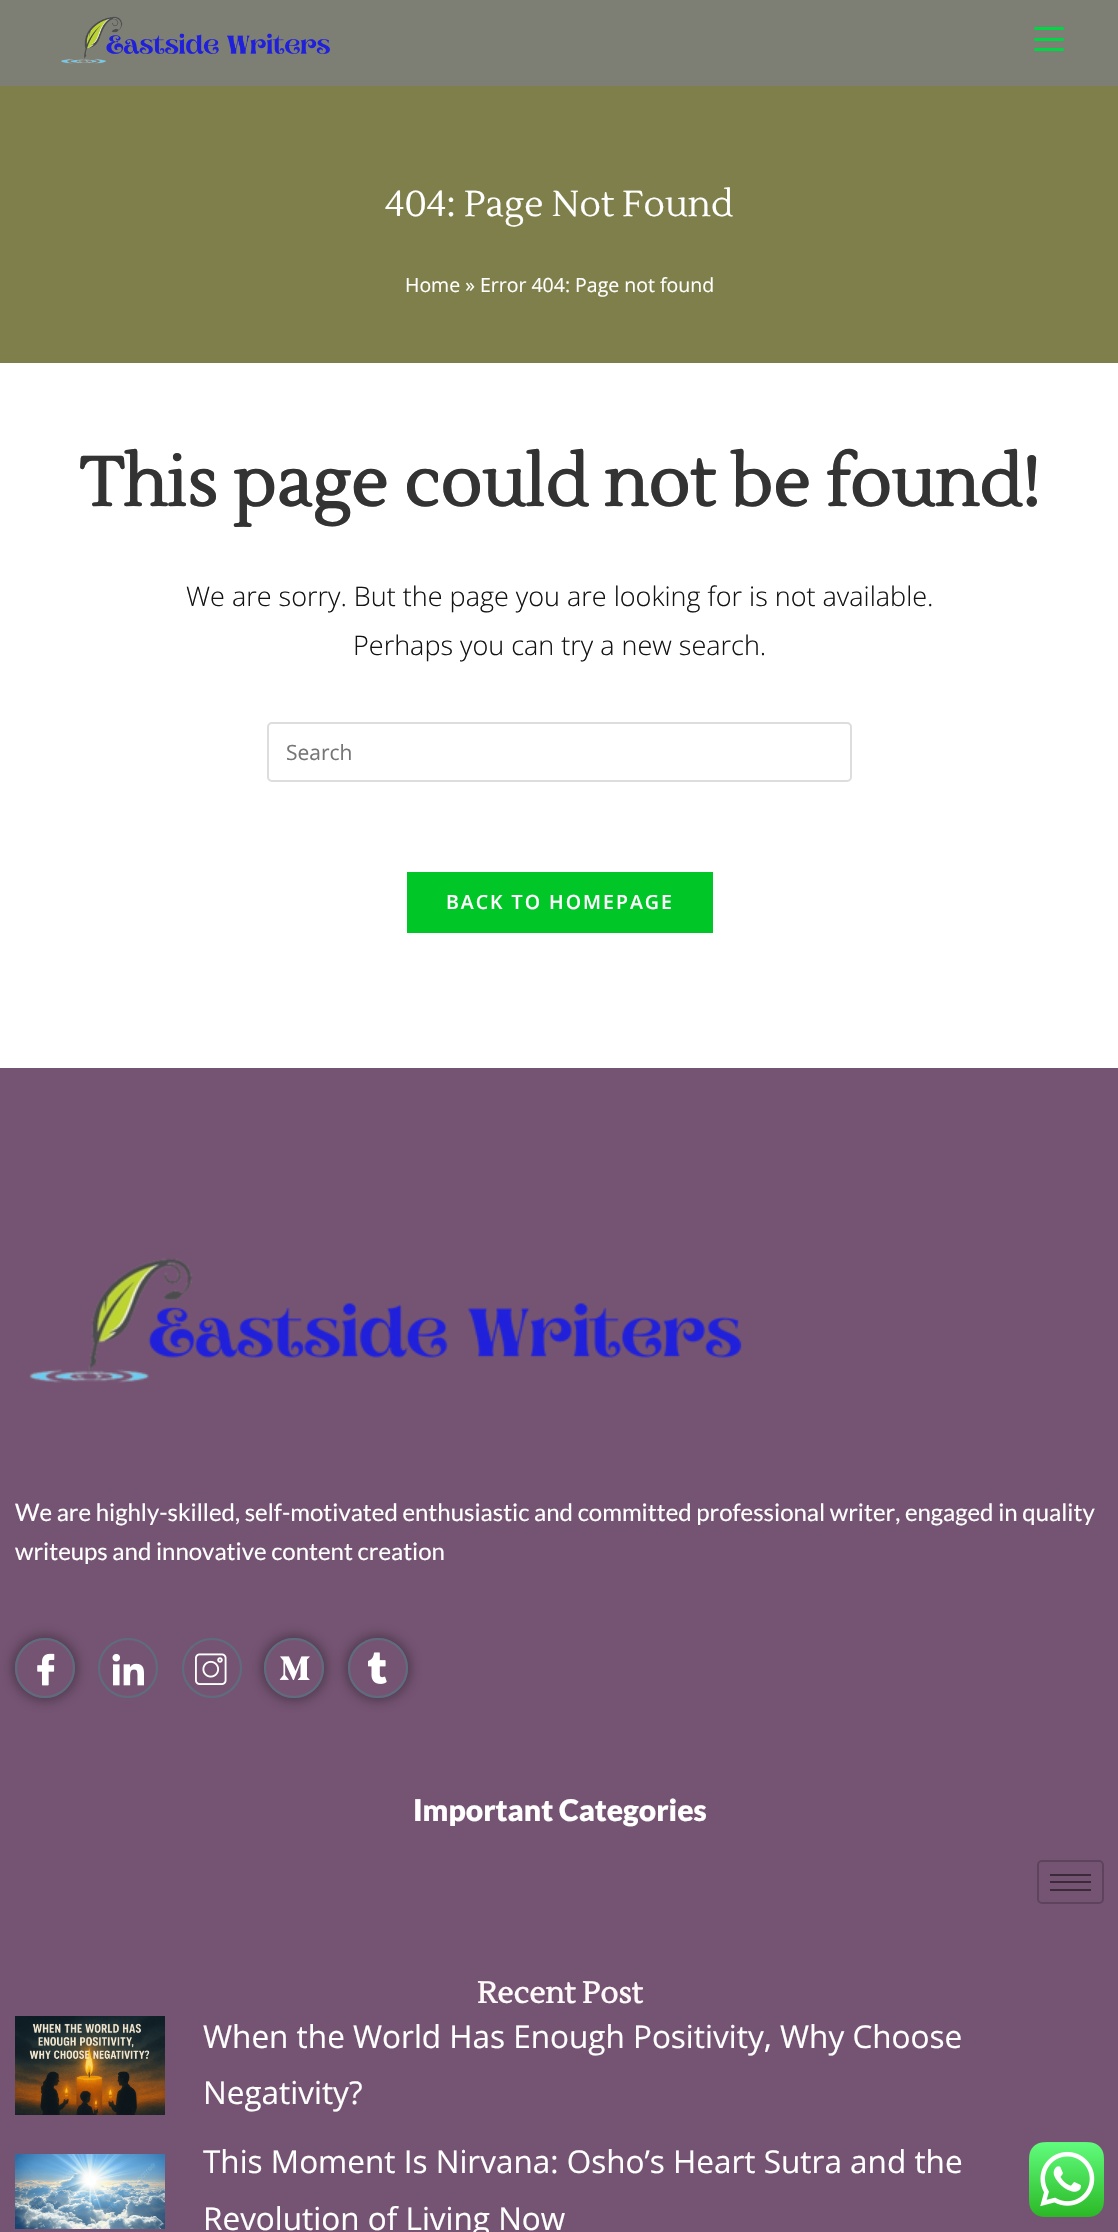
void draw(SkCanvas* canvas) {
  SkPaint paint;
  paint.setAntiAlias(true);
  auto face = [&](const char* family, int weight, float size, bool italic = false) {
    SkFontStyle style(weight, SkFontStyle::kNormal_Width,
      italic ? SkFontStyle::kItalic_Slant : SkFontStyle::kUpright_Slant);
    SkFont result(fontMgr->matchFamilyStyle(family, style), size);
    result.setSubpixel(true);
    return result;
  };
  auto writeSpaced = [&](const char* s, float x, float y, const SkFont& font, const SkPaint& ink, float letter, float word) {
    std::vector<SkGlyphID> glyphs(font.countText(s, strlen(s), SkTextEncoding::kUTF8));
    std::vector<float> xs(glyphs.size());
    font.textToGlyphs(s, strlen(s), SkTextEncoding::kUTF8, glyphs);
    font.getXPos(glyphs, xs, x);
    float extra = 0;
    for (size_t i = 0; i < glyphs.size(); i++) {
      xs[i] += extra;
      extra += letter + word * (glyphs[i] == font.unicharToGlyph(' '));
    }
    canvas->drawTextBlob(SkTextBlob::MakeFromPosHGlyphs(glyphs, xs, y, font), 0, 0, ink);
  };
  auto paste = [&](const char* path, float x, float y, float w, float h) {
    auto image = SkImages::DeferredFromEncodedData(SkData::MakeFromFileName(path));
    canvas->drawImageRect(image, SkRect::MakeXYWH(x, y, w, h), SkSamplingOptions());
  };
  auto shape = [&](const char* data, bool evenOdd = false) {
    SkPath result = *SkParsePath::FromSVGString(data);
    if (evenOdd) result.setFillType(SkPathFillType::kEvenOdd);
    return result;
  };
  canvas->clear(0xffffffff);
  paint.setColor(0xff7d7f75);
  canvas->drawRect(SkRect::MakeXYWH(0, 0, 1118, 86), paint);
  paste("img/1.png", 61, 16, 269, 48);
  paint.setColor(0xff00d646);
  canvas->drawRoundRect(SkRect::MakeXYWH(1034, 27, 30, 3), 1.5f, 1.5f, paint);
  canvas->drawRoundRect(SkRect::MakeXYWH(1034, 38, 30, 3), 1.5f, 1.5f, paint);
  canvas->drawRoundRect(SkRect::MakeXYWH(1034, 48, 30, 3), 1.5f, 1.5f, paint);
  paint.setColor(0xff7f7f4b);
  canvas->drawRect(SkRect::MakeXYWH(0, 86, 1118, 277), paint);
  paint.setStroke(true);
  paint.setStrokeWidth(2);
  paint.setColor(0xffdddddd);
  canvas->drawRoundRect(SkRect::MakeXYWH(268, 723, 583, 58), 4, 4, paint);
  paint.setStroke(false);
  paint.setColor(0xff00c627);
  canvas->drawRect(SkRect::MakeXYWH(407, 872, 306, 61), paint);
  paint.setColor(0xff755473);
  canvas->drawRect(SkRect::MakeXYWH(0, 1068, 1118, 1164), paint);
  paste("img/2.png", 29, 1258, 713, 125);
  canvas->save();
  canvas->clipPath(shape("M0 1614H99V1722H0ZM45 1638C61.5 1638 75 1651.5 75 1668C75 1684.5 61.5 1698 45 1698C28.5 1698 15 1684.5 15 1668C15 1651.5 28.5 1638 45 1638Z", true), true);
  paint.setColor(0x80000000);
  paint.setMaskFilter(SkMaskFilter::MakeBlur(kNormal_SkBlurStyle, 7.5f));
  canvas->drawRoundRect(SkRect::MakeXYWH(15, 1638, 60, 60), 30, 30, paint);
  paint.setMaskFilter(nullptr);
  canvas->restore();
  paint.setStroke(true);
  paint.setColor(0xff5e6d7e);
  canvas->drawCircle(45, 1668, 29, paint);
  paste("img/3.png", 37, 1653, 18, 33);
  canvas->drawCircle(128, 1668, 29, paint);
  paste("img/4.png", 112, 1653, 32, 33);
  canvas->drawCircle(212, 1668, 29, paint);
  paste("img/5.png", 195, 1653, 32, 32);
  canvas->save();
  canvas->clipPath(shape("M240 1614H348V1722H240ZM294 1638C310.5 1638 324 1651.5 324 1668C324 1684.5 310.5 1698 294 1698C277.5 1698 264 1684.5 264 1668C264 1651.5 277.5 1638 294 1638Z", true), true);
  paint.setStroke(false);
  paint.setColor(0x80000000);
  paint.setMaskFilter(SkMaskFilter::MakeBlur(kNormal_SkBlurStyle, 7.5f));
  canvas->drawRoundRect(SkRect::MakeXYWH(264, 1638, 60, 60), 30, 30, paint);
  paint.setMaskFilter(nullptr);
  canvas->restore();
  paint.setStroke(true);
  paint.setColor(0xff5e6d7e);
  canvas->drawCircle(294, 1668, 29, paint);
  paste("img/6.png", 279, 1656, 31, 24);
  canvas->save();
  canvas->clipPath(shape("M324 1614H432V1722H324ZM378 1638C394.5 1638 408 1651.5 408 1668C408 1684.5 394.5 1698 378 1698C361.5 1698 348 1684.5 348 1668C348 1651.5 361.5 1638 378 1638Z", true), true);
  paint.setStroke(false);
  paint.setColor(0x80000000);
  paint.setMaskFilter(SkMaskFilter::MakeBlur(kNormal_SkBlurStyle, 7.5f));
  canvas->drawRoundRect(SkRect::MakeXYWH(348, 1638, 60, 60), 30, 30, paint);
  paint.setMaskFilter(nullptr);
  canvas->restore();
  paint.setStroke(true);
  paint.setColor(0xff5e6d7e);
  canvas->drawCircle(378, 1668, 29, paint);
  paste("img/7.png", 368, 1652, 19, 32);
  paint.setColor(0xff5e435c);
  canvas->drawRoundRect(SkRect::MakeXYWH(1038, 1861, 65, 42), 4, 4, paint);
  paint.setStroke(false);
  {
    const struct { float x, y, w, h; SkColor color; } items[] = {
      {1050, 1874, 41, 2, 0xff3b2a3a},
      {1050, 1881, 41, 2, 0xff3b2a3a},
      {1050, 1889, 41, 2, 0xff3b2a3a},
    };
    for (auto [x, y, w, h, color] : items) {
      paint.setColor(color);
      canvas->drawRect(SkRect::MakeXYWH(x, y, w, h), paint);
    }
  }
  paste("img/8.png", 15, 2016, 150, 99);
  paste("img/9.png", 15, 2154, 150, 75);
  paste("img/10.png", 1029, 2142, 75, 75);
  auto f0 = face("Lustria", 400, 36);
  paint.setColor(0xffffffff);
  canvas->drawString("404: Page Not Found", 385, 216, f0, paint);
  auto f1 = face("Open Sans", 400, 19.5f);
  canvas->drawString("Home » Error 404: Page not found", 405, 292, f1, paint);
  auto f2 = face("Lustria", 700, 69);
  paint.setColor(0xff333333);
  canvas->drawString("This page could not be found!", 80, 506, f2, paint);
  auto f3 = face("Open Sans", 300, 27);
  paint.setColor(0xff141414);
  canvas->drawString("We are sorry. But the page you are looking for is not available.", 186, 606, f3, paint);
  canvas->drawString("Perhaps you can try a new search.", 353, 655, f3, paint);
  auto f4 = face("Open Sans", 400, 21);
  paint.setColor(0xff757575);
  canvas->drawString("Search", 286, 760, f4, paint);
  auto f5 = face("Open Sans", 600, 19.5f);
  paint.setColor(0xffffffff);
  writeSpaced("BACK TO HOMEPAGE", 446, 909, f5, paint, 2, 0);
  auto f6 = face("Lato", 400, 24);
  canvas->drawString("We are highly-skilled, self-motivated enthusiastic and committed professional writer, engaged in quality", 15, 1521, f6, paint);
  canvas->drawString("writeups and innovative content creation", 15, 1560, f6, paint);
  auto f7 = face("Lato", 900, 30);
  canvas->drawString("Important Categories", 413, 1821, f7, paint);
  auto f8 = face("Lustria", 700, 30);
  paint.setColor(0xfffff9f9);
  canvas->drawString("Recent Post", 477, 2003, f8, paint);
  auto f9 = face("Open Sans", 400, 31.5f);
  paint.setColor(0xffffffff);
  {
    const struct { const char* s; float x, y; } items[] = {
      {"When the World Has Enough Positivity, Why Choose", 203, 2048},
      {"Negativity?", 203, 2104},
      {"This Moment Is Nirvana: Osho’s Heart Sutra and the", 203, 2173},
      {"Revolution of Living Now", 203, 2230},
    };
    for (auto [s, x, y] : items) {
      canvas->drawString(s, x, y, f9, paint);
    }
  }
}
